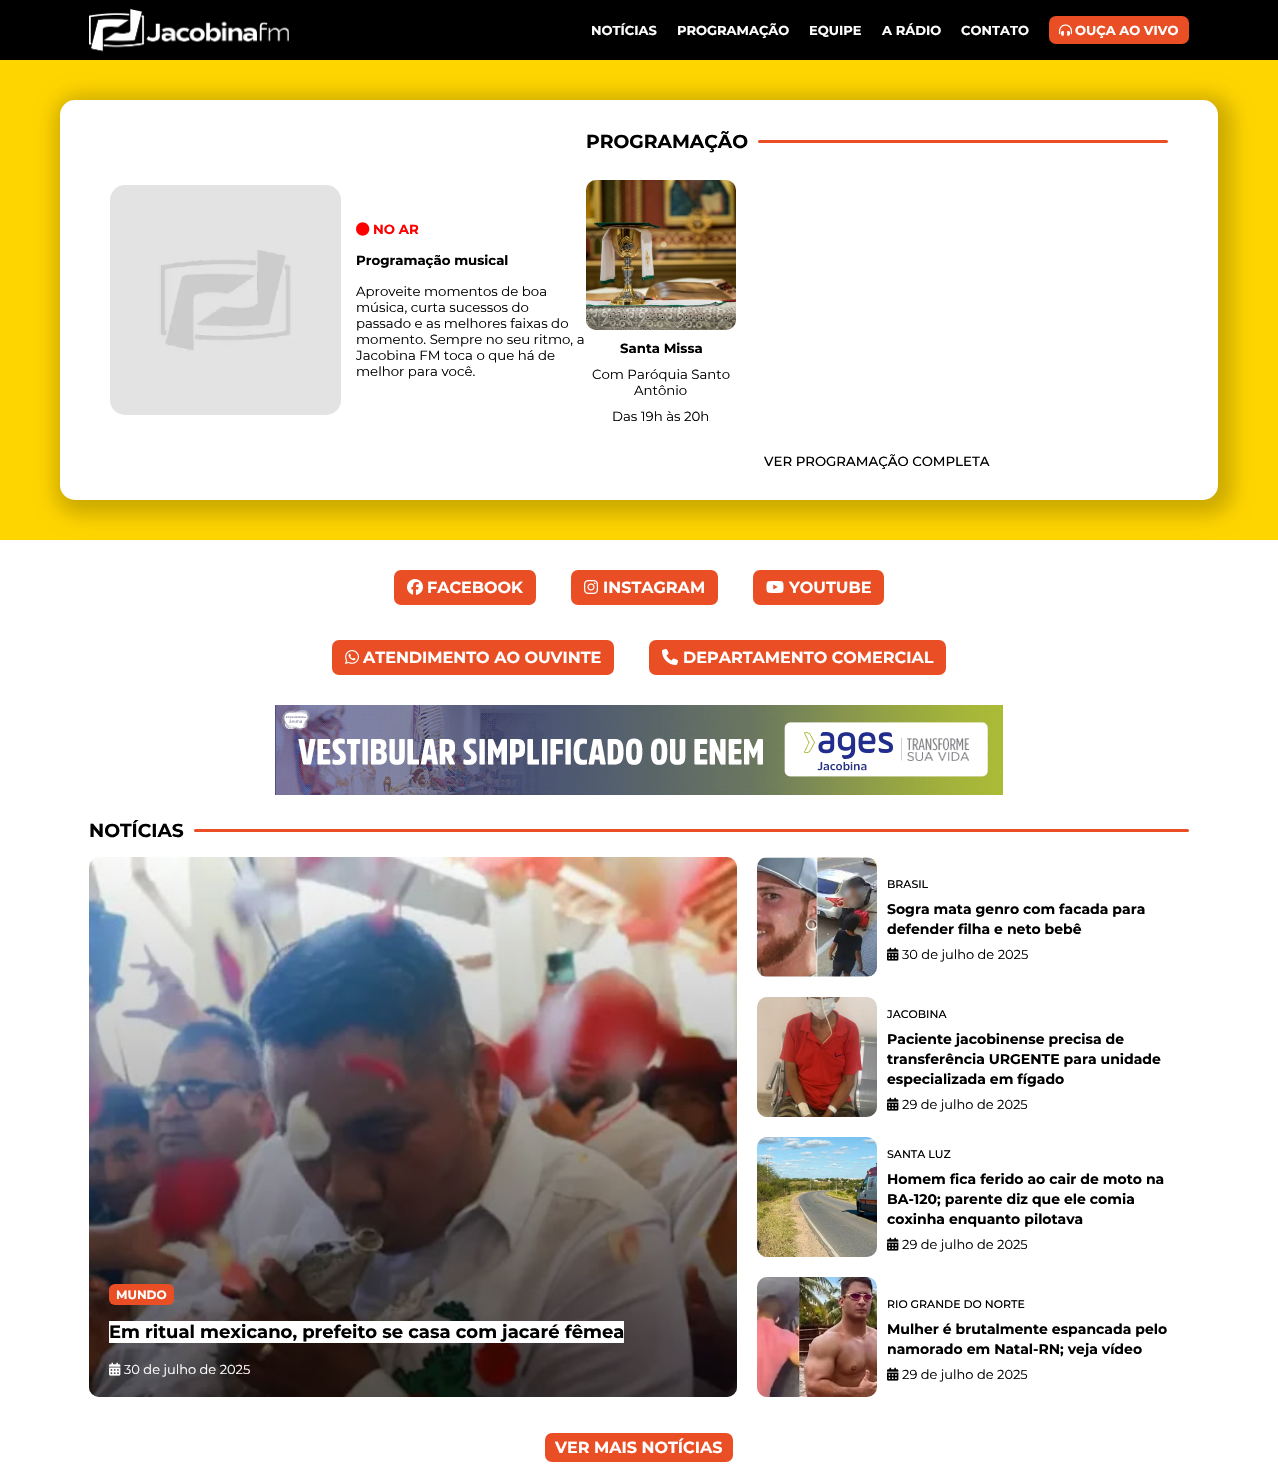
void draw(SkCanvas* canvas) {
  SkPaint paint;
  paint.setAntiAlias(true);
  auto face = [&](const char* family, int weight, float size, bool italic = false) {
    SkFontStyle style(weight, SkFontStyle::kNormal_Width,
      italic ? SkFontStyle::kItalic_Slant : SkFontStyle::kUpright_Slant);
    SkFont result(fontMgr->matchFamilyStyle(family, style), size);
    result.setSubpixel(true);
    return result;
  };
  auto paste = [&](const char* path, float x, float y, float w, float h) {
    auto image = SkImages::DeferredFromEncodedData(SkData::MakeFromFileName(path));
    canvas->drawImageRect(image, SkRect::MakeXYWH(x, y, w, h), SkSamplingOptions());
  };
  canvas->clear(0xffffffff);
  paint.setColor(0xff000000);
  canvas->drawRect(SkRect::MakeXYWH(0, 0, 1278, 60), paint);
  paste("img/1.png", 89, 9, 200, 43);
  paint.setColor(0xffe94e24);
  canvas->drawRoundRect(SkRect::MakeXYWH(1049, 16, 140, 28), 7, 7, paint);
  paste("img/2.png", 1059, 24, 13, 12);
  paint.setColor(0xffffd500);
  canvas->drawRect(SkRect::MakeXYWH(0, 60, 1278, 480), paint);
  paint.setColor(0x33000000);
  paint.setMaskFilter(SkMaskFilter::MakeBlur(kNormal_SkBlurStyle, 10));
  canvas->drawRoundRect(SkRect::MakeXYWH(55, 95, 1178, 420), 25, 25, paint);
  paint.setMaskFilter(nullptr);
  paint.setColor(0xffffffff);
  canvas->drawRoundRect(SkRect::MakeXYWH(60, 100, 1158, 400), 15, 15, paint);
  paste("img/3.png", 110, 185, 231, 230);
  paste("img/4.png", 356, 222, 14, 14);
  paint.setColor(0xffe94e24);
  canvas->drawRoundRect(SkRect::MakeXYWH(758, 140, 410, 3), 1.5f, 1.5f, paint);
  paste("img/5.png", 586, 180, 150, 150);
  canvas->drawRoundRect(SkRect::MakeXYWH(394, 570, 142, 35), 7, 7, paint);
  paste("img/6.png", 407, 579, 16, 16);
  canvas->drawRoundRect(SkRect::MakeXYWH(571, 570, 147, 35), 7, 7, paint);
  paste("img/7.png", 584, 580, 14, 14);
  canvas->drawRoundRect(SkRect::MakeXYWH(753, 570, 131, 35), 7, 7, paint);
  paste("img/8.png", 766, 581, 18, 12);
  canvas->drawRoundRect(SkRect::MakeXYWH(332, 640, 282, 35), 7, 7, paint);
  paste("img/9.png", 345, 650, 14, 14);
  canvas->drawRoundRect(SkRect::MakeXYWH(649, 640, 297, 35), 7, 7, paint);
  paste("img/10.png", 662, 649, 16, 16);
  paste("img/11.png", 275, 705, 728, 90);
  canvas->drawRoundRect(SkRect::MakeXYWH(194, 829, 995, 3), 1.5f, 1.5f, paint);
  paste("img/12.png", 757, 857, 120, 120);
  paste("img/13.png", 887, 947, 12, 14);
  paste("img/14.png", 757, 997, 120, 120);
  paste("img/13.png", 887, 1097, 12, 14);
  paste("img/15.png", 757, 1137, 120, 120);
  paste("img/13.png", 887, 1237, 12, 14);
  paste("img/16.png", 89, 857, 648, 540);
  {
    const SkColor colors[] = {0x8f000000, 0x00000000};
    const float stops[] = {0, 1};
    const SkPoint ends[] = {{413, 1397}, {413, 857}};
    paint.setShader(SkGradientShader::MakeLinear(ends, colors, stops, 2, SkTileMode::kClamp));
    paint.setAlpha(255);
  }
  canvas->drawRoundRect(SkRect::MakeXYWH(89, 857, 648, 540), 10, 10, paint);
  paint.setShader(nullptr);
  paint.setColor(0xffe94e24);
  canvas->drawRoundRect(SkRect::MakeXYWH(109, 1284, 65, 21), 6, 6, paint);
  paint.setColor(0xffffffff);
  canvas->drawRect(SkRect::MakeXYWH(109, 1321, 515, 22), paint);
  paste("img/17.png", 109, 1362, 12, 14);
  paste("img/18.png", 757, 1277, 120, 120);
  paste("img/13.png", 887, 1367, 12, 14);
  paint.setColor(0xffe94e24);
  canvas->drawRoundRect(SkRect::MakeXYWH(545, 1433, 188, 29), 7, 7, paint);
  auto f0 = face("Montserrat", 700, 13);
  paint.setColor(0xffffffff);
  {
    const struct { const char* s; float x, y; } items[] = {
      {"NOTÍCIAS", 591, 35},
      {"PROGRAMAÇÃO", 677, 35},
      {"EQUIPE", 809, 35},
      {"A RÁDIO", 882, 35},
      {"CONTATO", 961, 35},
      {"OUÇA AO VIVO", 1075, 35},
    };
    for (auto [s, x, y] : items) {
      canvas->drawString(s, x, y, f0, paint);
    }
  }
  auto f1 = face("Montserrat", 700, 13.3f);
  paint.setColor(0xffff0000);
  canvas->drawString("NO AR", 373, 234, f1, paint);
  paint.setColor(0xff000000);
  canvas->drawString("Programação musical", 356, 265, f1, paint);
  auto f2 = face("Montserrat", 400, 13.3f);
  {
    const struct { const char* s; float x, y; } items[] = {
      {"Aproveite momentos de boa", 356, 296},
      {"música, curta sucessos do", 356, 312},
      {"passado e as melhores faixas do", 356, 328},
      {"momento. Sempre no seu ritmo, a", 356, 344},
      {"Jacobina FM toca o que há de", 356, 360},
      {"melhor para você.", 356, 376},
    };
    for (auto [s, x, y] : items) {
      canvas->drawString(s, x, y, f2, paint);
    }
  }
  auto f3 = face("Montserrat", 700, 18.75f);
  canvas->drawString("PROGRAMAÇÃO", 586, 148, f3, paint);
  canvas->drawString("Santa Missa", 620, 353, f1, paint);
  {
    const struct { const char* s; float x, y; } items[] = {
      {"Com Paróquia Santo", 592, 379},
      {"Antônio", 634, 395},
      {"Das 19h às 20h", 612, 421},
    };
    for (auto [s, x, y] : items) {
      canvas->drawString(s, x, y, f2, paint);
    }
  }
  auto f4 = face("Montserrat", 500, 13.3f);
  canvas->drawString("VER PROGRAMAÇÃO COMPLETA", 764, 466, f4, paint);
  auto f5 = face("Montserrat", 700, 16);
  paint.setColor(0xffffffff);
  {
    const struct { const char* s; float x, y; } items[] = {
      {"FACEBOOK", 427, 593},
      {"INSTAGRAM", 603, 593},
      {"YOUTUBE", 789, 593},
      {"ATENDIMENTO AO OUVINTE", 363, 663},
      {"DEPARTAMENTO COMERCIAL", 683, 663},
    };
    for (auto [s, x, y] : items) {
      canvas->drawString(s, x, y, f5, paint);
    }
  }
  paint.setColor(0xff000000);
  canvas->drawString("NOTÍCIAS", 89, 837, f3, paint);
  auto f6 = face("Montserrat", 500, 11);
  canvas->drawString("BRASIL", 887, 888, f6, paint);
  auto f7 = face("Montserrat", 700, 14);
  canvas->drawString("Sogra mata genro com facada para", 887, 914, f7, paint);
  canvas->drawString("defender filha e neto bebê", 887, 934, f7, paint);
  auto f8 = face("Montserrat", 400, 13);
  canvas->drawString("30 de julho de 2025", 902, 959, f8, paint);
  canvas->drawString("JACOBINA", 887, 1018, f6, paint);
  {
    const struct { const char* s; float x, y; } items[] = {
      {"Paciente jacobinense precisa de", 887, 1044},
      {"transferência URGENTE para unidade", 887, 1064},
      {"especializada em fígado", 887, 1084},
    };
    for (auto [s, x, y] : items) {
      canvas->drawString(s, x, y, f7, paint);
    }
  }
  canvas->drawString("29 de julho de 2025", 902, 1109, f8, paint);
  canvas->drawString("SANTA LUZ", 887, 1158, f6, paint);
  {
    const struct { const char* s; float x, y; } items[] = {
      {"Homem fica ferido ao cair de moto na", 887, 1184},
      {"BA-120; parente diz que ele comia", 887, 1204},
      {"coxinha enquanto pilotava", 887, 1224},
    };
    for (auto [s, x, y] : items) {
      canvas->drawString(s, x, y, f7, paint);
    }
  }
  canvas->drawString("29 de julho de 2025", 902, 1249, f8, paint);
  auto f9 = face("Montserrat", 700, 12);
  paint.setColor(0xffffffff);
  canvas->drawString("MUNDO", 116, 1299, f9, paint);
  auto f10 = face("Montserrat", 700, 18);
  paint.setColor(0xff000000);
  canvas->drawString("Em ritual mexicano, prefeito se casa com jacaré fêmea", 109, 1338, f10, paint);
  paint.setColor(0xffffffff);
  canvas->drawString("30 de julho de 2025", 124, 1374, f8, paint);
  paint.setColor(0xff000000);
  canvas->drawString("RIO GRANDE DO NORTE", 887, 1308, f6, paint);
  canvas->drawString("Mulher é brutalmente espancada pelo", 887, 1334, f7, paint);
  canvas->drawString("namorado em Natal-RN; veja vídeo", 887, 1354, f7, paint);
  canvas->drawString("29 de julho de 2025", 902, 1379, f8, paint);
  paint.setColor(0xffffffff);
  canvas->drawString("VER MAIS NOTÍCIAS", 555, 1453, f5, paint);
}
